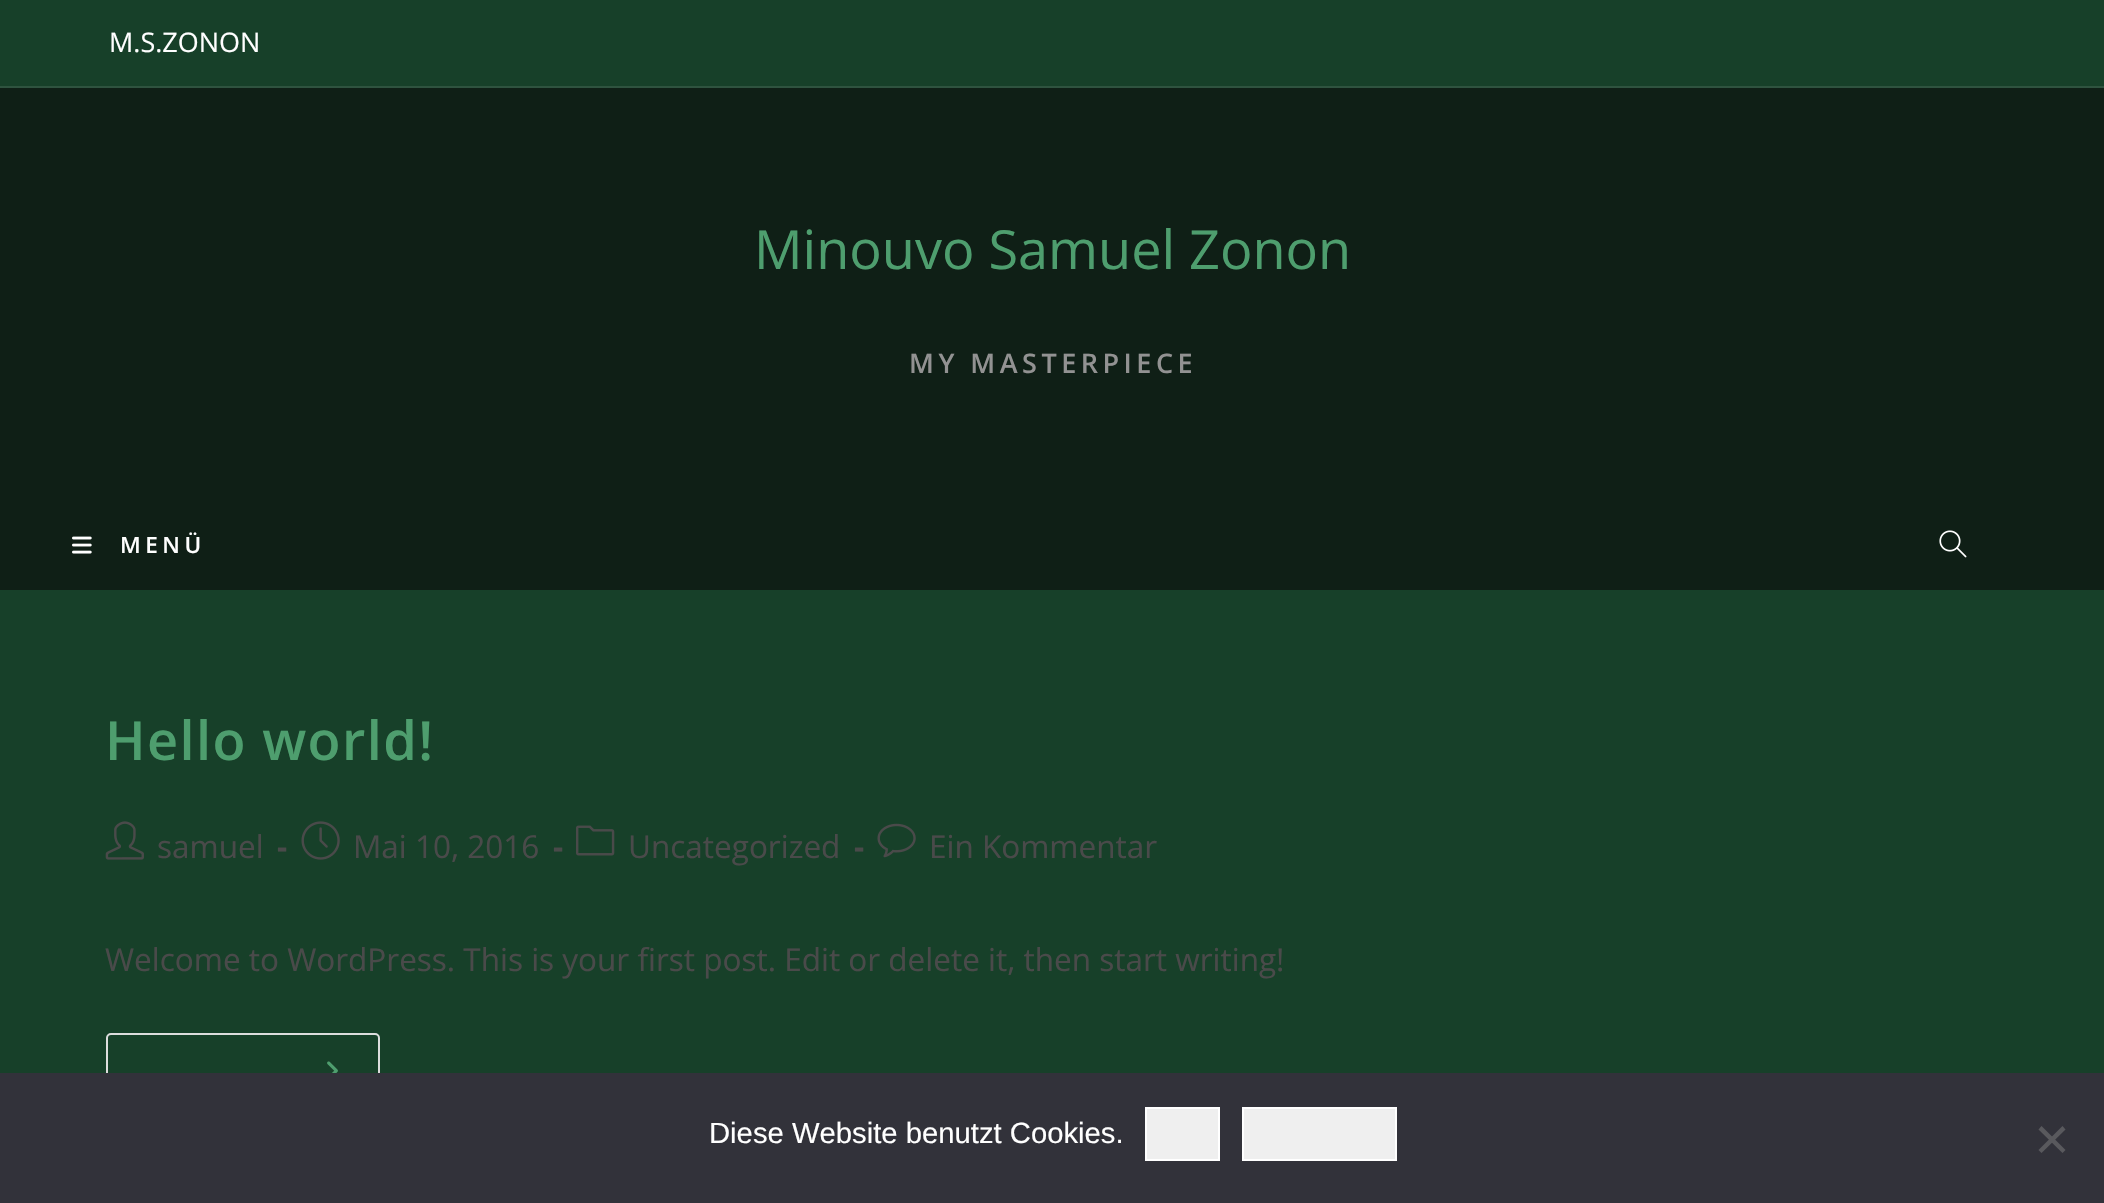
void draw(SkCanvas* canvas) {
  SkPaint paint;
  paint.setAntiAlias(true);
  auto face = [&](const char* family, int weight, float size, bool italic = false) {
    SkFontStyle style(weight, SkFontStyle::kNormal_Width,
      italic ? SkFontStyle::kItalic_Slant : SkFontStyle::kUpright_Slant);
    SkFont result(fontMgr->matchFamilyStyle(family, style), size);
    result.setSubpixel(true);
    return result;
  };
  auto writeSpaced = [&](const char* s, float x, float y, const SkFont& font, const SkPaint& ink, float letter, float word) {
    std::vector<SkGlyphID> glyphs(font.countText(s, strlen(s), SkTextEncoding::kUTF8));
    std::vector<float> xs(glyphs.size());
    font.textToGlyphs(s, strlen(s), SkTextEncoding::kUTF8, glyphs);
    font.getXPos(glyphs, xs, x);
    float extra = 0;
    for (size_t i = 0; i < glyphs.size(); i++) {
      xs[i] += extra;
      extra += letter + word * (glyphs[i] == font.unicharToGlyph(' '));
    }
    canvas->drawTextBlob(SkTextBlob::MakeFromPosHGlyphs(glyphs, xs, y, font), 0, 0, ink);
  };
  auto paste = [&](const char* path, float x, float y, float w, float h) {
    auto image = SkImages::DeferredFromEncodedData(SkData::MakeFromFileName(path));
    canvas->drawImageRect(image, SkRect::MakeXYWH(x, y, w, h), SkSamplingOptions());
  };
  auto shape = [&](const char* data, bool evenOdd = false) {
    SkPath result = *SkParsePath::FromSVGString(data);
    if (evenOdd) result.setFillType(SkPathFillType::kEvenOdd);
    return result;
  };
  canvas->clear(0xff174029);
  paint.setColor(0xff2f533f);
  canvas->drawRect(SkRect::MakeXYWH(0, 86, 2104, 2), paint);
  paint.setColor(0xff0f1f16);
  canvas->drawRect(SkRect::MakeXYWH(0, 88, 2104, 502), paint);
  paste("img/1.png", 72, 536, 20, 18);
  paste("img/2.png", 1939, 530, 28, 28);
  paste("img/3.png", 105, 821, 39, 39);
  paste("img/4.png", 301, 821, 39, 39);
  paste("img/5.png", 576, 825, 39, 31);
  paste("img/6.png", 877, 823, 39, 35);
  paint.setStroke(true);
  paint.setStrokeWidth(2);
  paint.setColor(0xffdddddd);
  canvas->drawRoundRect(SkRect::MakeXYWH(107, 1034, 272, 74), 4, 4, paint);
  paste("img/7.png", 327, 1061, 11, 12);
  paint.setStroke(false);
  paint.setColor(0xff32323a);
  canvas->drawRect(SkRect::MakeXYWH(0, 1073, 2104, 130), paint);
  paint.setColor(0xffefefef);
  canvas->drawRect(SkRect::MakeXYWH(1146, 1108, 73, 52), paint);
  paint.setStroke(true);
  paint.setColor(0xffffffff);
  canvas->drawRect(SkRect::MakeXYWH(1146, 1108, 73, 52), paint);
  paint.setStroke(false);
  paint.setColor(0xffefefef);
  canvas->drawRect(SkRect::MakeXYWH(1243, 1108, 153, 52), paint);
  paint.setStroke(true);
  paint.setColor(0xffffffff);
  canvas->drawRect(SkRect::MakeXYWH(1243, 1108, 153, 52), paint);
  paint.setStroke(false);
  paint.setColor(0xff59595d);
  canvas->drawPath(shape("M2062.5 1126L2065.5 1129.5L2041.5 1153L2038.5 1150Z"), paint);
  canvas->drawPath(shape("M2038.5 1129.5L2041.5 1126L2065.5 1150L2062.5 1153Z"), paint);
  auto f0 = face("Open Sans", 400, 27);
  paint.setColor(0xffffffff);
  canvas->drawString("M.S.ZONON", 109, 52, f0, paint);
  auto f1 = face("Open Sans", 400, 54);
  paint.setColor(0xff4e9e6e);
  canvas->drawString("Minouvo Samuel Zonon", 754, 269, f1, paint);
  auto f2 = face("Open Sans", 600, 27);
  paint.setColor(0xff929292);
  writeSpaced("MY MASTERPIECE", 909, 373, f2, paint, 4.5f, 0);
  auto f3 = face("Open Sans", 600, 22.5f);
  paint.setColor(0xffffffff);
  writeSpaced("MENÜ", 120, 553, f3, paint, 4.5f, 0);
  auto f4 = face("Open Sans", 600, 54);
  paint.setColor(0xff4e9e6e);
  writeSpaced("Hello world!", 105, 760, f4, paint, 1.4f, 0);
  auto f5 = face("Open Sans", 400, 31.5f);
  paint.setColor(0xff4a4a4a);
  canvas->drawString("samuel", 157, 858, f5, paint);
  auto f6 = face("Open Sans", 700, 31.5f);
  canvas->drawString("-", 277, 858, f6, paint);
  canvas->drawString("Mai 10, 2016", 353, 858, f5, paint);
  canvas->drawString("-", 553, 858, f6, paint);
  canvas->drawString("Uncategorized", 628, 858, f5, paint);
  canvas->drawString("-", 854, 858, f6, paint);
  canvas->drawString("Ein Kommentar", 929, 858, f5, paint);
  canvas->drawString("Welcome to WordPress. This is your first post. Edit or delete it, then start writing!", 105, 971, f5, paint);
  auto f7 = face("Liberation Sans", 400, 29.25f);
  paint.setColor(0xffffffff);
  canvas->drawString("Diese Website benutzt Cookies.", 709, 1143, f7, paint);
}
